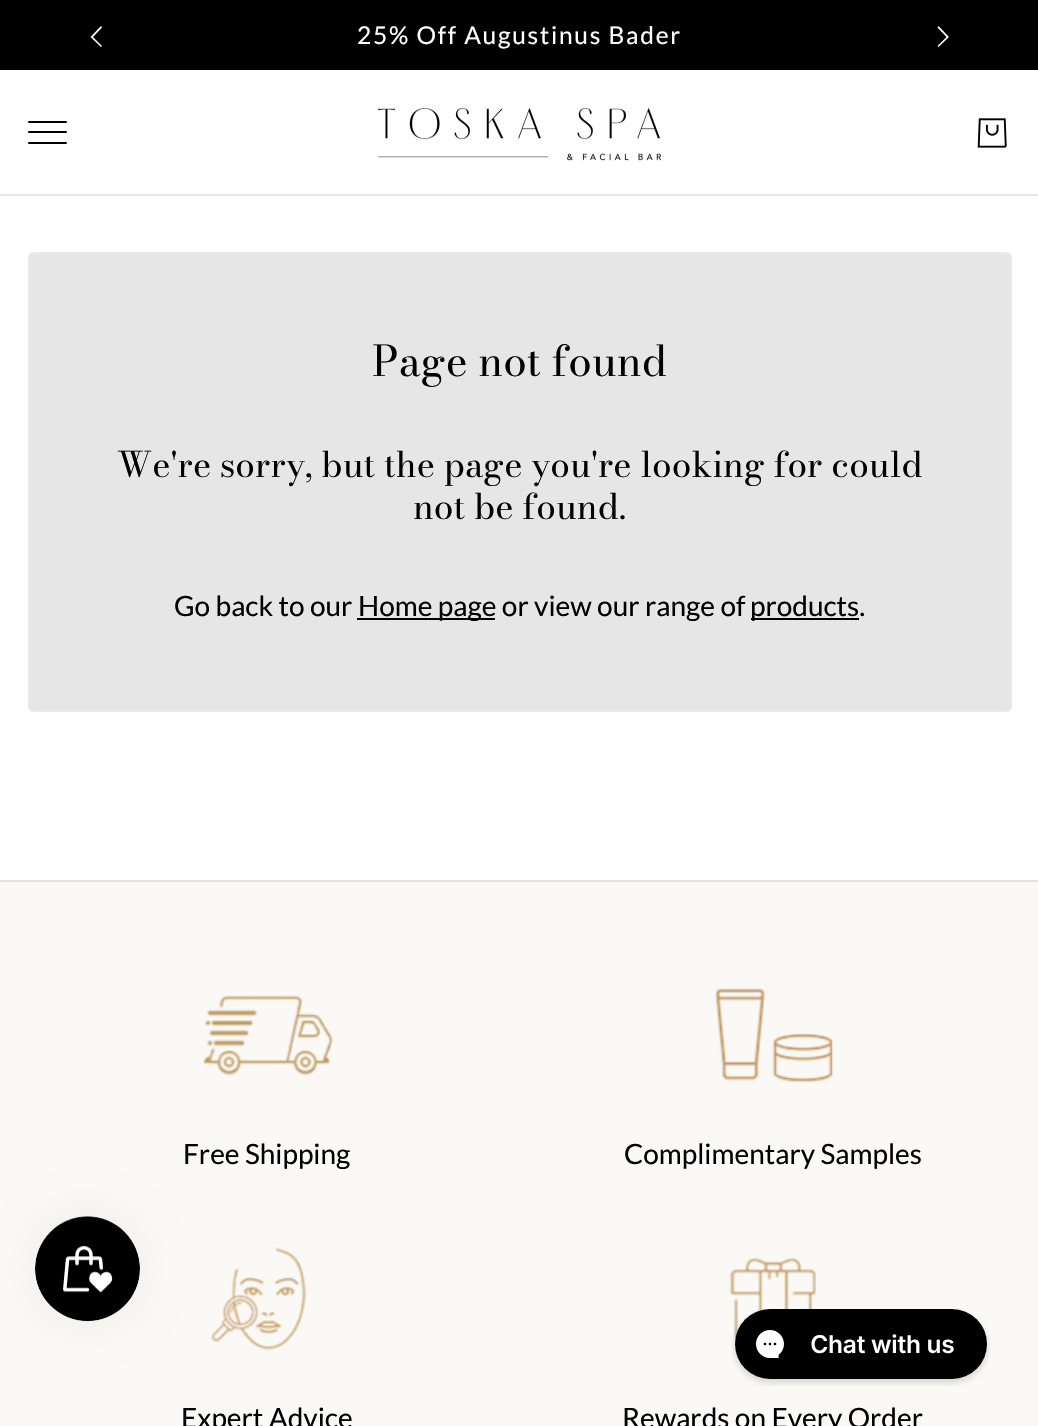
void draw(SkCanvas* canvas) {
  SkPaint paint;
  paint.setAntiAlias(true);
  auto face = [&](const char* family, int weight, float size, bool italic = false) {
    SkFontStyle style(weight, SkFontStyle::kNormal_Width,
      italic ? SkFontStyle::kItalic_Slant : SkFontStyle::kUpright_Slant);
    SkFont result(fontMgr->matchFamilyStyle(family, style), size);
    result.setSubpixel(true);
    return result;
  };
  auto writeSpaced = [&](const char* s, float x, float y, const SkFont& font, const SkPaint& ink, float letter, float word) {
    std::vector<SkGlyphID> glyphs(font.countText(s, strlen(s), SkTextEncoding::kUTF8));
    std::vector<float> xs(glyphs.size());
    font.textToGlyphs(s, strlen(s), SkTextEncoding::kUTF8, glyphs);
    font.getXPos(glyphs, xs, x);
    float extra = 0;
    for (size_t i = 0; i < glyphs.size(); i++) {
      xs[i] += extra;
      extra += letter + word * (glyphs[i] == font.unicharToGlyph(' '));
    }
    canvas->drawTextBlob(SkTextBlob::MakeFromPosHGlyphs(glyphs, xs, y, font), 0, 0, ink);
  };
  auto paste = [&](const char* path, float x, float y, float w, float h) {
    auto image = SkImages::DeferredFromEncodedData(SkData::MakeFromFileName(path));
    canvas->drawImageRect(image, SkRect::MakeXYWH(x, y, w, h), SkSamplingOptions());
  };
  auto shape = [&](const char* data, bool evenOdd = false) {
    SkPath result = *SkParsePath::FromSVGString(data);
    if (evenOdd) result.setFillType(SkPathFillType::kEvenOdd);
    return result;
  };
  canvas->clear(0xffffffff);
  paint.setColor(0xfffaf9f5);
  canvas->drawRect(SkRect::MakeXYWH(0, 882, 1038, 544), paint);
  paint.setColor(0x0d000000);
  paint.setMaskFilter(SkMaskFilter::MakeBlur(kNormal_SkBlurStyle, 22));
  canvas->drawRoundRect(SkRect::MakeXYWH(35, 1216, 105, 105), 52.5f, 52.5f, paint);
  paint.setMaskFilter(nullptr);
  paste("img/1.png", 35, 1216, 105, 106);
  paint.setColor(0xff000000);
  canvas->drawRect(SkRect::MakeXYWH(0, 0, 1038, 70), paint);
  paint.setColor(0xffffffff);
  canvas->drawPath(shape("M93 37L102 46L101 47L90.5 37L101 26L102 27.5Z"), paint);
  canvas->drawPath(shape("M946.5 37L937.5 27.5L938.5 26L949 37L938.5 47L937.5 46Z"), paint);
  paint.setColor(0xff000000);
  canvas->drawRoundRect(SkRect::MakeXYWH(28, 121, 39, 2), 1, 1, paint);
  canvas->drawRoundRect(SkRect::MakeXYWH(28, 131, 39, 2), 1, 1, paint);
  canvas->drawRoundRect(SkRect::MakeXYWH(28, 142, 39, 2), 1, 1, paint);
  paste("img/2.png", 378, 108, 283, 53);
  paste("img/3.png", 977, 118, 30, 30);
  paint.setColor(0xffe6e6e6);
  canvas->drawRect(SkRect::MakeXYWH(0, 194, 1038, 2), paint);
  canvas->drawRoundRect(SkRect::MakeXYWH(29, 253, 982, 458), 4, 4, paint);
  paint.setStroke(true);
  paint.setStrokeWidth(2);
  paint.setColor(0xffeaeaea);
  canvas->drawRoundRect(SkRect::MakeXYWH(29, 253, 982, 458), 4, 4, paint);
  paint.setStroke(false);
  {
    const struct { float x, y, w, h; SkColor color; } items[] = {
      {357, 618, 138, 2, 0xff000000},
      {751, 618, 108, 2, 0xff000000},
      {0, 880, 1038, 2, 0xffe1e0dd},
    };
    for (auto [x, y, w, h, color] : items) {
      paint.setColor(color);
      canvas->drawRect(SkRect::MakeXYWH(x, y, w, h), paint);
    }
  }
  paste("img/4.png", 203, 995, 130, 81);
  paste("img/5.png", 715, 988, 118, 95);
  paste("img/6.png", 211, 1247, 96, 104);
  paste("img/7.png", 729, 1258, 87, 82);
  paste("img/8.png", 731, 1309, 260, 77);
  auto f0 = face("Lato", 400, 24.5f);
  paint.setColor(0xffffffff);
  writeSpaced("25% Off Augustinus Bader", 357, 44, f0, paint, 1.75f, 0);
  auto f1 = face("Bodoni Moda", 400, 42);
  paint.setColor(0xff000000);
  canvas->drawString("Page not found", 372, 376, f1, paint);
  auto f2 = face("Bodoni Moda", 400, 35);
  canvas->drawString("We're sorry, but the page you're looking for could", 117, 477, f2, paint);
  canvas->drawString("not be found.", 413, 519, f2, paint);
  auto f3 = face("Lato", 400, 28);
  {
    const struct { const char* s; float x, y; } items[] = {
      {"Go back to our", 174, 616},
      {"Home page or view our range of", 358, 616},
      {"products.", 750, 616},
      {"Free Shipping", 183, 1164},
      {"Complimentary Samples", 624, 1164},
      {"Expert Advice", 181, 1428},
      {"Rewards on Every Order", 622, 1428},
    };
    for (auto [s, x, y] : items) {
      canvas->drawString(s, x, y, f3, paint);
    }
  }
}
